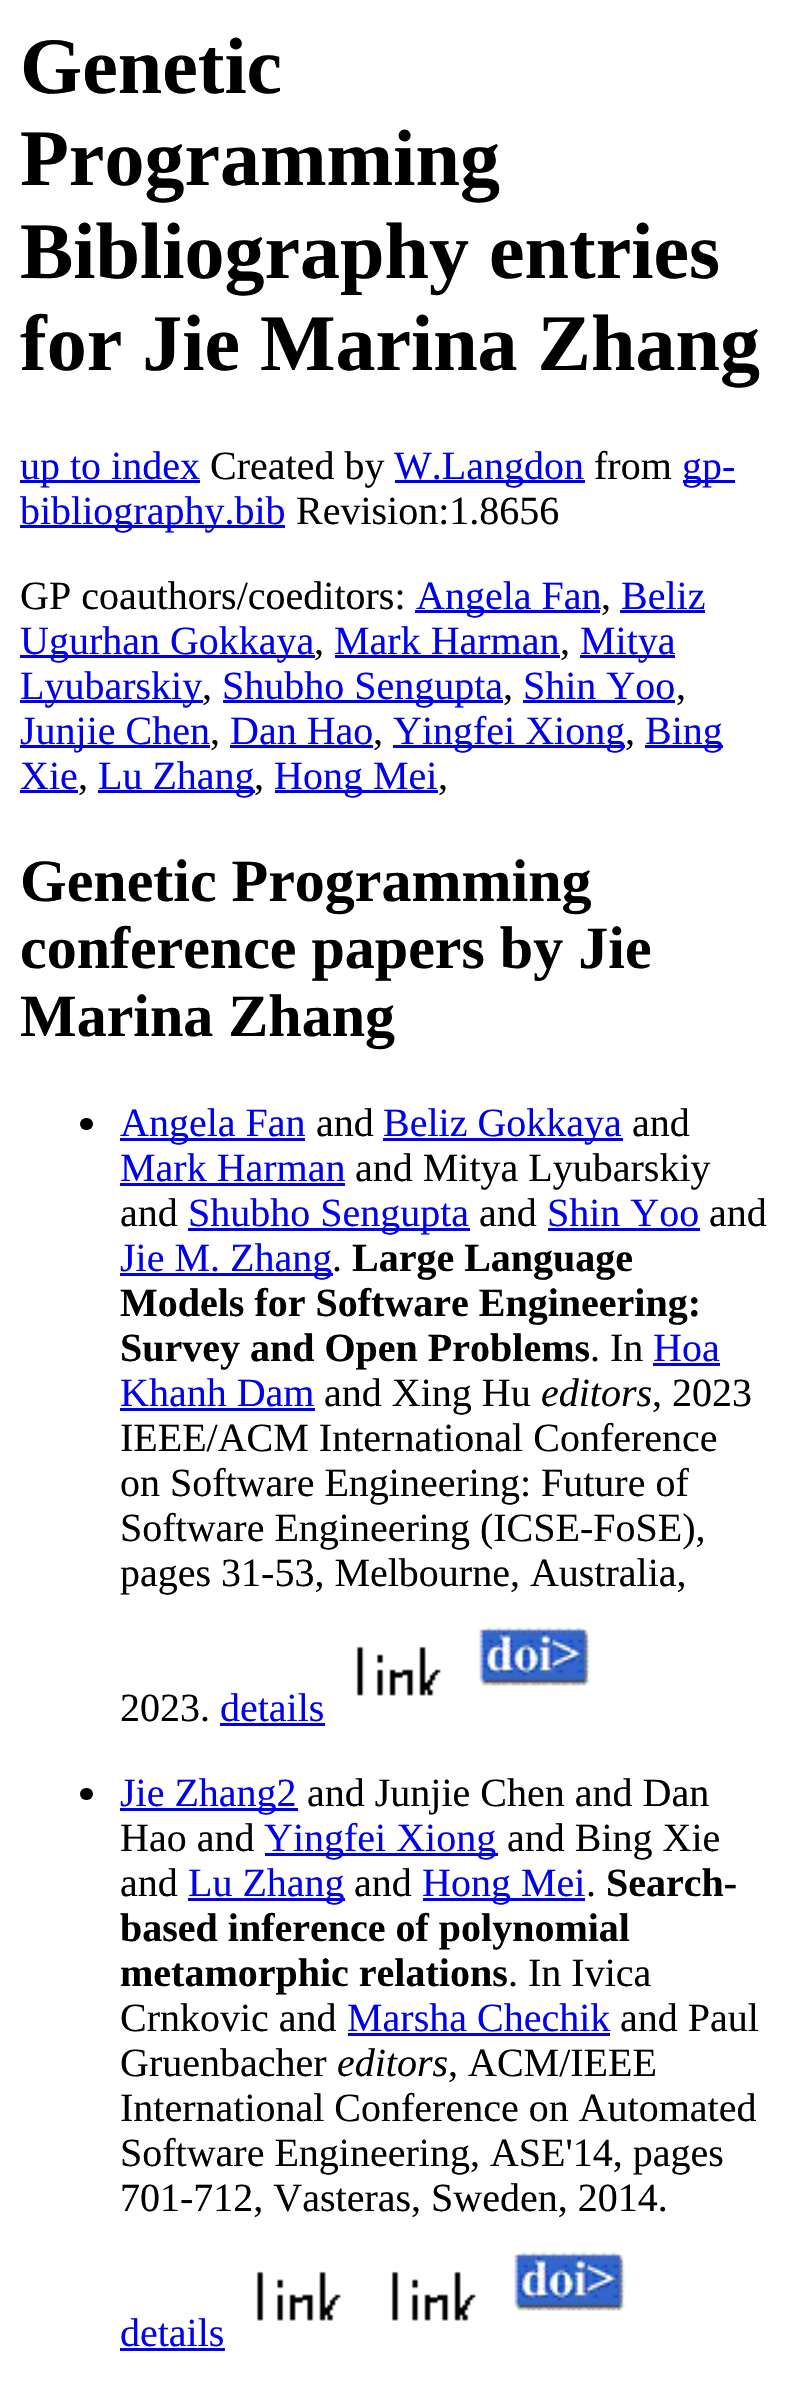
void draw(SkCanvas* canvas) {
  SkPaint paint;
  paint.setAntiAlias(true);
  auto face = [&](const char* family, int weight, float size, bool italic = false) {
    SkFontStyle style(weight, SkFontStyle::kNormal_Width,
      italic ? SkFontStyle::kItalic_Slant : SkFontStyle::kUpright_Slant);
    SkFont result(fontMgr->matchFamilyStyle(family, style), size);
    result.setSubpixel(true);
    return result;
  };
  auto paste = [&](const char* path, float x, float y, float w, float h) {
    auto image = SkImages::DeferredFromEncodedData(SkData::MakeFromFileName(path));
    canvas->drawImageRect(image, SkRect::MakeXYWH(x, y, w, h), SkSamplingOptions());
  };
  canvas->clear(0xffffffff);
  {
    const struct { float x, y, w, h; SkColor color; } items[] = {
      {20, 480, 180, 3, 0xff0000ee},
      {395, 480, 190, 3, 0xff0000ee},
      {683, 480, 52, 3, 0xff0000ee},
      {20, 525, 265, 3, 0xff0000ee},
      {415, 610, 185, 3, 0xff0000ee},
      {620, 610, 85, 3, 0xff0000ee},
      {20, 655, 295, 3, 0xff0000ee},
      {335, 655, 225, 3, 0xff0000ee},
      {580, 655, 95, 3, 0xff0000ee},
      {20, 700, 183, 3, 0xff0000ee},
      {223, 700, 280, 3, 0xff0000ee},
      {523, 700, 152, 3, 0xff0000ee},
      {20, 745, 190, 3, 0xff0000ee},
      {230, 745, 143, 3, 0xff0000ee},
      {393, 745, 232, 3, 0xff0000ee},
      {645, 745, 78, 3, 0xff0000ee},
      {20, 790, 58, 3, 0xff0000ee},
      {98, 790, 157, 3, 0xff0000ee},
      {275, 790, 163, 3, 0xff0000ee},
    };
    for (auto [x, y, w, h, color] : items) {
      paint.setColor(color);
      canvas->drawRect(SkRect::MakeXYWH(x, y, w, h), paint);
    }
  }
  paint.setColor(0xff000000);
  canvas->drawRoundRect(SkRect::MakeXYWH(80, 1118, 13, 12), 6, 6, paint);
  {
    const struct { float x, y, w, h; SkColor color; } items[] = {
      {120, 1138, 185, 3, 0xff0000ee},
      {383, 1138, 240, 3, 0xff0000ee},
      {120, 1183, 225, 3, 0xff0000ee},
      {188, 1228, 282, 3, 0xff0000ee},
      {548, 1228, 152, 3, 0xff0000ee},
      {120, 1273, 213, 3, 0xff0000ee},
      {653, 1363, 67, 3, 0xff0000ee},
      {120, 1408, 195, 3, 0xff0000ee},
    };
    for (auto [x, y, w, h, color] : items) {
      paint.setColor(color);
      canvas->drawRect(SkRect::MakeXYWH(x, y, w, h), paint);
    }
  }
  paste("img/1.png", 356, 1646, 85, 50);
  paste("img/2.png", 479, 1627, 112, 59);
  canvas->drawRect(SkRect::MakeXYWH(220, 1723, 105, 3), paint);
  paint.setColor(0xff000000);
  canvas->drawRoundRect(SkRect::MakeXYWH(80, 1788, 13, 12), 6, 6, paint);
  {
    const struct { float x, y, w, h; SkColor color; } items[] = {
      {120, 1808, 178, 3, 0xff0000ee},
      {265, 1853, 233, 3, 0xff0000ee},
      {188, 1898, 157, 3, 0xff0000ee},
      {423, 1898, 162, 3, 0xff0000ee},
      {348, 2033, 262, 3, 0xff0000ee},
    };
    for (auto [x, y, w, h, color] : items) {
      paint.setColor(color);
      canvas->drawRect(SkRect::MakeXYWH(x, y, w, h), paint);
    }
  }
  paste("img/3.png", 256, 2271, 85, 50);
  paste("img/1.png", 391, 2271, 85, 50);
  paste("img/4.png", 514, 2252, 112, 59);
  canvas->drawRect(SkRect::MakeXYWH(120, 2348, 105, 3), paint);
  auto f0 = face("Liberation Serif", 700, 80);
  paint.setColor(0xff000000);
  {
    const struct { const char* s; float x, y; } items[] = {
      {"Genetic", 20, 93},
      {"Programming", 20, 185},
      {"Bibliography entries", 20, 278},
      {"for Jie Marina Zhang", 20, 370},
    };
    for (auto [s, x, y] : items) {
      canvas->drawString(s, x, y, f0, paint);
    }
  }
  auto f1 = face("Liberation Serif", 400, 40);
  paint.setColor(0xff0000ee);
  canvas->drawString("up to index", 20, 479, f1, paint);
  paint.setColor(0xff000000);
  canvas->drawString("Created by", 210, 479, f1, paint);
  paint.setColor(0xff0000ee);
  canvas->drawString("W.Langdon", 394, 479, f1, paint);
  paint.setColor(0xff000000);
  canvas->drawString("from", 594, 479, f1, paint);
  paint.setColor(0xff0000ee);
  canvas->drawString("gp-", 682, 479, f1, paint);
  canvas->drawString("bibliography.bib", 20, 524, f1, paint);
  paint.setColor(0xff000000);
  canvas->drawString("Revision:1.8656", 296, 524, f1, paint);
  canvas->drawString("GP coauthors/coeditors:", 20, 609, f1, paint);
  paint.setColor(0xff0000ee);
  canvas->drawString("Angela Fan", 416, 609, f1, paint);
  paint.setColor(0xff000000);
  canvas->drawString(",", 601, 609, f1, paint);
  paint.setColor(0xff0000ee);
  canvas->drawString("Beliz", 621, 609, f1, paint);
  canvas->drawString("Ugurhan Gokkaya", 20, 654, f1, paint);
  paint.setColor(0xff000000);
  canvas->drawString(",", 314, 654, f1, paint);
  paint.setColor(0xff0000ee);
  canvas->drawString("Mark Harman", 334, 654, f1, paint);
  paint.setColor(0xff000000);
  canvas->drawString(",", 560, 654, f1, paint);
  paint.setColor(0xff0000ee);
  canvas->drawString("Mitya", 580, 654, f1, paint);
  canvas->drawString("Lyubarskiy", 20, 699, f1, paint);
  paint.setColor(0xff000000);
  canvas->drawString(",", 202, 699, f1, paint);
  paint.setColor(0xff0000ee);
  canvas->drawString("Shubho Sengupta", 222, 699, f1, paint);
  paint.setColor(0xff000000);
  canvas->drawString(",", 503, 699, f1, paint);
  paint.setColor(0xff0000ee);
  canvas->drawString("Shin Yoo", 523, 699, f1, paint);
  paint.setColor(0xff000000);
  canvas->drawString(",", 676, 699, f1, paint);
  paint.setColor(0xff0000ee);
  canvas->drawString("Junjie Chen", 20, 744, f1, paint);
  paint.setColor(0xff000000);
  canvas->drawString(",", 210, 744, f1, paint);
  paint.setColor(0xff0000ee);
  canvas->drawString("Dan Hao", 230, 744, f1, paint);
  paint.setColor(0xff000000);
  canvas->drawString(",", 373, 744, f1, paint);
  paint.setColor(0xff0000ee);
  canvas->drawString("Yingfei Xiong", 393, 744, f1, paint);
  paint.setColor(0xff000000);
  canvas->drawString(",", 625, 744, f1, paint);
  paint.setColor(0xff0000ee);
  canvas->drawString("Bing", 645, 744, f1, paint);
  canvas->drawString("Xie", 20, 789, f1, paint);
  paint.setColor(0xff000000);
  canvas->drawString(",", 78, 789, f1, paint);
  paint.setColor(0xff0000ee);
  canvas->drawString("Lu Zhang", 98, 789, f1, paint);
  paint.setColor(0xff000000);
  canvas->drawString(",", 254, 789, f1, paint);
  paint.setColor(0xff0000ee);
  canvas->drawString("Hong Mei", 274, 789, f1, paint);
  paint.setColor(0xff000000);
  canvas->drawString(",", 438, 789, f1, paint);
  auto f2 = face("Liberation Serif", 700, 60);
  {
    const struct { const char* s; float x, y; } items[] = {
      {"Genetic Programming", 20, 901},
      {"conference papers by Jie", 20, 968},
      {"Marina Zhang", 20, 1036},
    };
    for (auto [s, x, y] : items) {
      canvas->drawString(s, x, y, f2, paint);
    }
  }
  paint.setColor(0xff0000ee);
  canvas->drawString("Angela Fan", 120, 1136, f1, paint);
  paint.setColor(0xff000000);
  canvas->drawString("and", 316, 1136, f1, paint);
  paint.setColor(0xff0000ee);
  canvas->drawString("Beliz Gokkaya", 383, 1136, f1, paint);
  paint.setColor(0xff000000);
  canvas->drawString("and", 632, 1136, f1, paint);
  paint.setColor(0xff0000ee);
  canvas->drawString("Mark Harman", 120, 1181, f1, paint);
  paint.setColor(0xff000000);
  canvas->drawString("and Mitya Lyubarskiy", 355, 1181, f1, paint);
  canvas->drawString("and", 120, 1226, f1, paint);
  paint.setColor(0xff0000ee);
  canvas->drawString("Shubho Sengupta", 188, 1226, f1, paint);
  paint.setColor(0xff000000);
  canvas->drawString("and", 479, 1226, f1, paint);
  paint.setColor(0xff0000ee);
  canvas->drawString("Shin Yoo", 547, 1226, f1, paint);
  paint.setColor(0xff000000);
  canvas->drawString("and", 709, 1226, f1, paint);
  paint.setColor(0xff0000ee);
  canvas->drawString("Jie M. Zhang", 120, 1271, f1, paint);
  paint.setColor(0xff000000);
  canvas->drawString(".", 332, 1271, f1, paint);
  auto f3 = face("Liberation Serif", 700, 40);
  {
    const struct { const char* s; float x, y; } items[] = {
      {"Large Language", 352, 1271},
      {"Models for Software Engineering:", 120, 1316},
      {"Survey and Open Problems", 120, 1361},
    };
    for (auto [s, x, y] : items) {
      canvas->drawString(s, x, y, f3, paint);
    }
  }
  canvas->drawString(". In", 590, 1361, f1, paint);
  paint.setColor(0xff0000ee);
  canvas->drawString("Hoa", 653, 1361, f1, paint);
  canvas->drawString("Khanh Dam", 120, 1406, f1, paint);
  paint.setColor(0xff000000);
  canvas->drawString("and Xing Hu", 324, 1406, f1, paint);
  auto f4 = face("Liberation Serif", 400, 40, true);
  canvas->drawString("editors", 541, 1406, f4, paint);
  {
    const struct { const char* s; float x, y; } items[] = {
      {", 2023", 652, 1406},
      {"IEEE/ACM International Conference", 120, 1451},
      {"on Software Engineering: Future of", 120, 1496},
      {"Software Engineering (ICSE-FoSE),", 120, 1541},
      {"pages 31-53, Melbourne, Australia,", 120, 1586},
      {"2023.", 120, 1721},
    };
    for (auto [s, x, y] : items) {
      canvas->drawString(s, x, y, f1, paint);
    }
  }
  paint.setColor(0xff0000ee);
  canvas->drawString("details", 220, 1721, f1, paint);
  canvas->drawString("Jie Zhang2", 120, 1806, f1, paint);
  paint.setColor(0xff000000);
  canvas->drawString("and Junjie Chen and Dan", 307, 1806, f1, paint);
  canvas->drawString("Hao and", 120, 1851, f1, paint);
  paint.setColor(0xff0000ee);
  canvas->drawString("Yingfei Xiong", 264, 1851, f1, paint);
  paint.setColor(0xff000000);
  canvas->drawString("and Bing Xie", 507, 1851, f1, paint);
  canvas->drawString("and", 120, 1896, f1, paint);
  paint.setColor(0xff0000ee);
  canvas->drawString("Lu Zhang", 188, 1896, f1, paint);
  paint.setColor(0xff000000);
  canvas->drawString("and", 354, 1896, f1, paint);
  paint.setColor(0xff0000ee);
  canvas->drawString("Hong Mei", 422, 1896, f1, paint);
  paint.setColor(0xff000000);
  canvas->drawString(".", 586, 1896, f1, paint);
  {
    const struct { const char* s; float x, y; } items[] = {
      {"Search-", 606, 1896},
      {"based inference of polynomial", 120, 1941},
      {"metamorphic relations", 120, 1986},
    };
    for (auto [s, x, y] : items) {
      canvas->drawString(s, x, y, f3, paint);
    }
  }
  canvas->drawString(". In Ivica", 508, 1986, f1, paint);
  canvas->drawString("Crnkovic and", 120, 2031, f1, paint);
  paint.setColor(0xff0000ee);
  canvas->drawString("Marsha Chechik", 347, 2031, f1, paint);
  paint.setColor(0xff000000);
  canvas->drawString("and Paul", 620, 2031, f1, paint);
  canvas->drawString("Gruenbacher", 120, 2076, f1, paint);
  canvas->drawString("editors", 337, 2076, f4, paint);
  {
    const struct { const char* s; float x, y; } items[] = {
      {", ACM/IEEE", 448, 2076},
      {"International Conference on Automated", 120, 2121},
      {"Software Engineering, ASE'14, pages", 120, 2166},
      {"701-712, Vasteras, Sweden, 2014.", 120, 2211},
    };
    for (auto [s, x, y] : items) {
      canvas->drawString(s, x, y, f1, paint);
    }
  }
  paint.setColor(0xff0000ee);
  canvas->drawString("details", 120, 2346, f1, paint);
}
